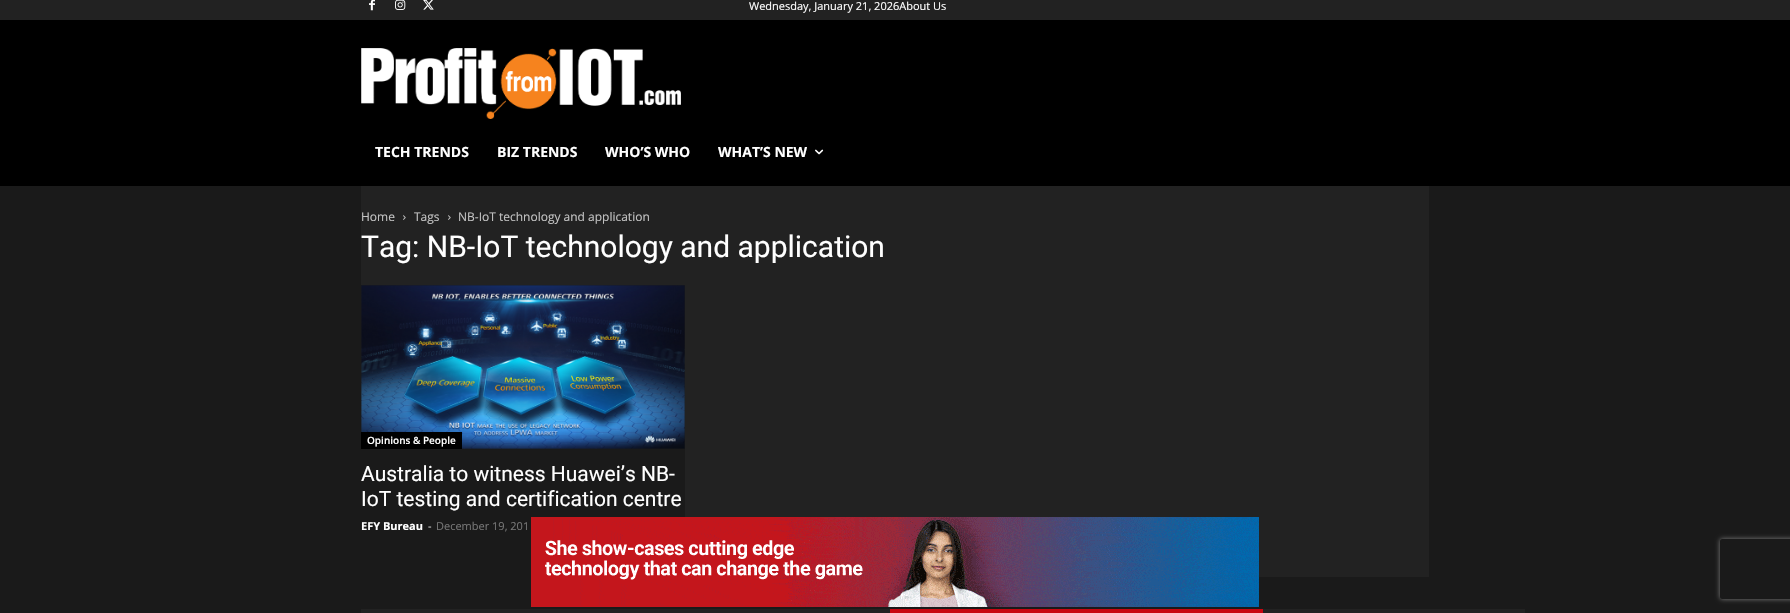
void draw(SkCanvas* canvas) {
  SkPaint paint;
  paint.setAntiAlias(true);
  auto face = [&](const char* family, int weight, float size, bool italic = false) {
    SkFontStyle style(weight, SkFontStyle::kNormal_Width,
      italic ? SkFontStyle::kItalic_Slant : SkFontStyle::kUpright_Slant);
    SkFont result(fontMgr->matchFamilyStyle(family, style), size);
    result.setSubpixel(true);
    return result;
  };
  auto paste = [&](const char* path, float x, float y, float w, float h) {
    auto image = SkImages::DeferredFromEncodedData(SkData::MakeFromFileName(path));
    canvas->drawImageRect(image, SkRect::MakeXYWH(x, y, w, h), SkSamplingOptions());
  };
  auto shape = [&](const char* data, bool evenOdd = false) {
    SkPath result = *SkParsePath::FromSVGString(data);
    if (evenOdd) result.setFillType(SkPathFillType::kEvenOdd);
    return result;
  };
  canvas->clear(0xff1a1a1a);
  paint.setColor(0xff222222);
  canvas->drawRect(SkRect::MakeXYWH(0, 0, 1790, 20), paint);
  paste("img/1.png", 369, 0, 6, 11);
  paste("img/2.png", 395, 0, 11, 10);
  paste("img/3.png", 423, 0, 11, 10);
  paint.setColor(0xff000000);
  canvas->drawRect(SkRect::MakeXYWH(0, 20, 1790, 166), paint);
  paste("img/4.png", 361, 48, 320, 71);
  paste("img/5.png", 815, 149, 9, 6);
  paint.setColor(0xff222222);
  canvas->drawRect(SkRect::MakeXYWH(361, 186, 1068, 391), paint);
  paste("img/6.png", 403, 215, 3, 5);
  paste("img/6.png", 448, 215, 3, 5);
  paint.setColor(0xff1a1a1a);
  canvas->drawRect(SkRect::MakeXYWH(361, 285, 324, 292), paint);
  paste("img/7.png", 361, 285, 324, 164);
  {
    const struct { float x, y, w, h; SkColor color; } items[] = {
      {361, 432, 101, 17, 0xff000000},
      {361, 609, 1164, 4, 0xff222222},
      {890, 609, 373, 4, 0xffc90610},
    };
    for (auto [x, y, w, h, color] : items) {
      paint.setColor(color);
      canvas->drawRect(SkRect::MakeXYWH(x, y, w, h), paint);
    }
  }
  paste("img/8.png", 531, 517, 728, 90);
  canvas->save();
  canvas->clipPath(shape("M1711 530H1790V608H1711ZM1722 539H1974C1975 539 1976 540 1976 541V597C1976 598 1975 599 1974 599H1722C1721 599 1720 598 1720 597V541C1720 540 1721 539 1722 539Z", true), true);
  paint.setColor(0xff808080);
  paint.setMaskFilter(SkMaskFilter::MakeBlur(kNormal_SkBlurStyle, 2.5f));
  canvas->drawRoundRect(SkRect::MakeXYWH(1720, 539, 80, 60), 2, 2, paint);
  paint.setMaskFilter(nullptr);
  canvas->restore();
  auto f0 = face("Open Sans", 400, 11);
  paint.setColor(0xffffffff);
  canvas->drawString("Wednesday, January 21, 2026About Us", 749, 10, f0, paint);
  auto f1 = face("Open Sans", 700, 14);
  {
    const struct { const char* s; float x, y; } items[] = {
      {"TECH TRENDS", 375, 157},
      {"BIZ TRENDS", 497, 157},
      {"WHO’S WHO", 605, 157},
      {"WHAT’S NEW", 718, 157},
    };
    for (auto [s, x, y] : items) {
      canvas->drawString(s, x, y, f1, paint);
    }
  }
  auto f2 = face("Open Sans", 400, 12);
  paint.setColor(0xffc3c3c3);
  {
    const struct { const char* s; float x, y; } items[] = {
      {"Home", 361, 221},
      {"Tags", 414, 221},
      {"NB-IoT technology and application", 458, 221},
    };
    for (auto [s, x, y] : items) {
      canvas->drawString(s, x, y, f2, paint);
    }
  }
  auto f3 = face("Roboto", 400, 30);
  paint.setColor(0xffffffff);
  canvas->drawString("Tag: NB-IoT technology and application", 361, 257, f3, paint);
  auto f4 = face("Open Sans", 600, 10);
  canvas->drawString("Opinions & People", 367, 444, f4, paint);
  auto f5 = face("Roboto", 400, 21);
  canvas->drawString("Australia to witness Huawei’s NB-", 361, 481, f5, paint);
  canvas->drawString("IoT testing and certification centre", 361, 506, f5, paint);
  auto f6 = face("Open Sans", 700, 11);
  canvas->drawString("EFY Bureau", 361, 530, f6, paint);
  paint.setColor(0xffcccccc);
  canvas->drawString("-", 428, 530, f0, paint);
  paint.setColor(0xff767676);
  canvas->drawString("December 19, 201", 436, 530, f0, paint);
}
